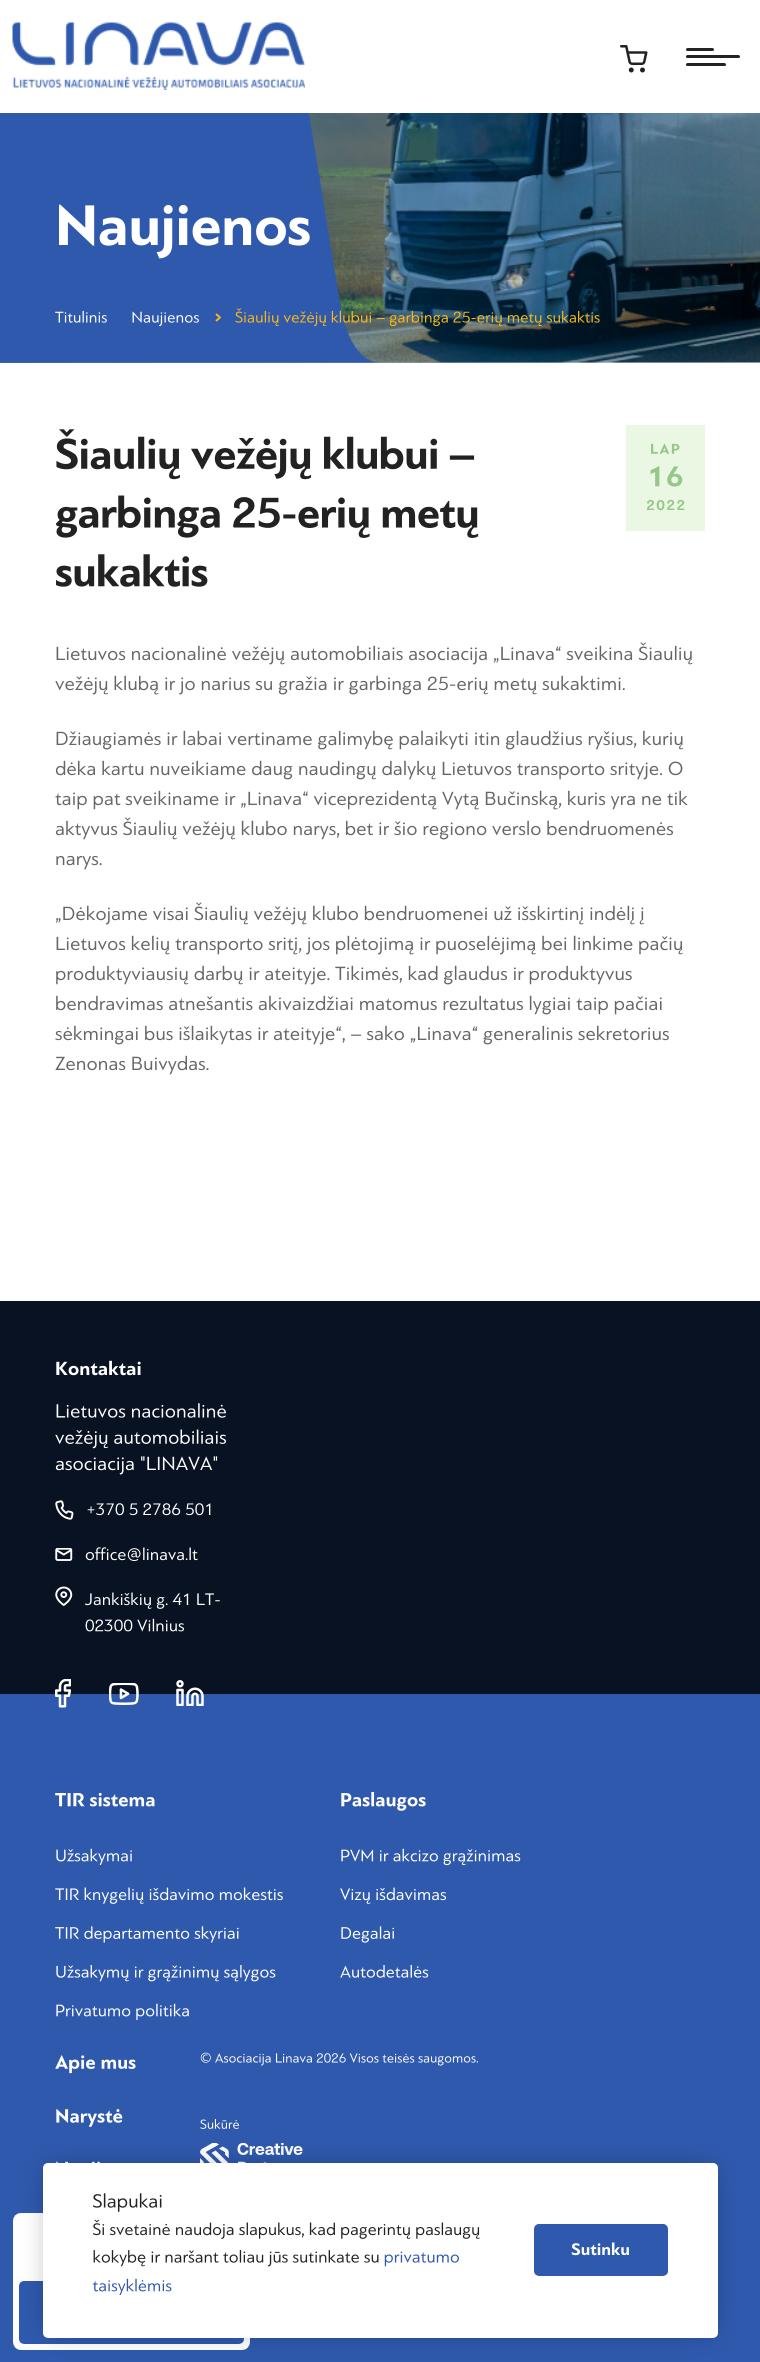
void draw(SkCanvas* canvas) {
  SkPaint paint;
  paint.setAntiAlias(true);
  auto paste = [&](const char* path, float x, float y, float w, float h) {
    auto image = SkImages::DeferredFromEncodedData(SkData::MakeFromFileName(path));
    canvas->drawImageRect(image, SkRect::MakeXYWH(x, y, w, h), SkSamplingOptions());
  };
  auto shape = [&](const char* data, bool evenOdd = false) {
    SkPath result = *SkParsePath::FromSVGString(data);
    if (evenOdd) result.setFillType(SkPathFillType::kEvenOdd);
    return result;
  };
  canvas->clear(0xffffffff);
  paste("img/1.png", 12, 22, 293, 68);
  paste("img/2.png", 620, 45, 28, 28);
  paint.setColor(0xff222222);
  canvas->drawRoundRect(SkRect::MakeXYWH(686, 48, 28, 3), 1.5f, 1.5f, paint);
  canvas->drawRoundRect(SkRect::MakeXYWH(686, 55, 54, 3), 1.5f, 1.5f, paint);
  canvas->drawRoundRect(SkRect::MakeXYWH(686, 63, 40, 3), 1.5f, 1.5f, paint);
  paint.setColor(0xfff5f5f5);
  canvas->drawRect(SkRect::MakeXYWH(0, 362, 760, 1), paint);
  paste("img/3.png", 0, 113, 760, 250);
  {
    const SkColor colors[] = {0x9900497b, 0x0000497b};
    const float stops[] = {0.3f, 1};
    const SkPoint ends[] = {{0, 238}, {760, 237}};
    paint.setShader(SkGradientShader::MakeLinear(ends, colors, stops, 2, SkTileMode::kClamp));
    paint.setAlpha(255);
  }
  canvas->drawRect(SkRect::MakeXYWH(0, 113, 741, 250), paint);
  paste("img/4.png", 0, 113, 378, 250);
  paste("img/5.png", 59, 204, 251, 55);
  paste("img/6.png", 55, 310, 52, 13);
  paste("img/7.png", 132, 311, 67, 16);
  paint.setStroke(true);
  paint.setStrokeWidth(1.9f);
  paint.setStrokeJoin(SkPaint::kRound_Join);
  paint.setShader(nullptr);
  paint.setColor(0xfffbb917);
  canvas->drawPath(shape("M216 314L220 317.5L216 321"), paint);
  paste("img/8.png", 235, 308, 365, 19);
  paste("img/9.png", 56, 429, 419, 51);
  paste("img/10.png", 55, 495, 424, 43);
  paste("img/11.png", 56, 554, 152, 33);
  paint.setStroke(false);
  paint.setColor(0xffe9f7e3);
  canvas->drawRect(SkRect::MakeXYWH(626, 425, 79, 106), paint);
  paste("img/12.png", 651, 443, 29, 11);
  paste("img/13.png", 650, 466, 33, 21);
  paste("img/14.png", 646, 499, 39, 12);
  paste("img/15.png", 56, 642, 637, 23);
  paste("img/16.png", 55, 675, 570, 20);
  paste("img/17.png", 56, 730, 628, 20);
  paste("img/18.png", 55, 760, 628, 20);
  paste("img/19.png", 55, 790, 633, 20);
  paste("img/20.png", 55, 817, 618, 23);
  paste("img/21.png", 56, 855, 46, 15);
  paste("img/22.png", 56, 902, 588, 23);
  paste("img/23.png", 56, 935, 627, 20);
  paste("img/24.png", 56, 965, 576, 20);
  paste("img/25.png", 56, 995, 606, 20);
  paste("img/26.png", 55, 1025, 614, 20);
  paste("img/27.png", 55, 1055, 154, 20);
  paint.setColor(0xff2f59ad);
  canvas->drawRect(SkRect::MakeXYWH(0, 1694, 760, 668), paint);
  paint.setColor(0xff091222);
  canvas->drawRect(SkRect::MakeXYWH(0, 1301, 760, 393), paint);
  paste("img/28.png", 56, 1360, 85, 16);
  paste("img/29.png", 56, 1403, 170, 15);
  paste("img/30.png", 55, 1429, 171, 20);
  paste("img/31.png", 55, 1456, 163, 19);
  paste("img/32.png", 55, 1500, 19, 20);
  paste("img/33.png", 87, 1503, 124, 13);
  paste("img/34.png", 55, 1548, 18, 13);
  paste("img/35.png", 85, 1547, 113, 14);
  paste("img/36.png", 55, 1586, 18, 20);
  paste("img/37.png", 85, 1592, 135, 17);
  paste("img/38.png", 85, 1618, 99, 14);
  paste("img/39.png", 55, 1679, 16, 29);
  paste("img/40.png", 109, 1683, 30, 22);
  paste("img/41.png", 176, 1680, 28, 26);
  paste("img/42.png", 55, 1792, 100, 15);
  paste("img/43.png", 56, 1848, 76, 17);
  paste("img/44.png", 55, 1887, 228, 17);
  paste("img/45.png", 55, 1926, 184, 17);
  paste("img/46.png", 56, 1965, 220, 17);
  paste("img/47.png", 56, 2003, 133, 17);
  paste("img/48.png", 341, 1792, 85, 19);
  paste("img/49.png", 341, 1848, 180, 18);
  paste("img/50.png", 340, 1887, 106, 17);
  paste("img/51.png", 341, 1926, 53, 17);
  paste("img/52.png", 340, 1965, 89, 13);
  paste("img/53.png", 55, 2055, 81, 19);
  paste("img/54.png", 56, 2109, 67, 18);
  paste("img/55.png", 56, 2161, 44, 2);
  paste("img/56.png", 200, 2052, 278, 14);
  paste("img/57.png", 200, 2119, 39, 10);
  paste("img/58.png", 200, 2143, 103, 20);
  paint.setColor(0xffffffff);
  canvas->drawRoundRect(SkRect::MakeXYWH(13, 2213, 237, 137), 8, 8, paint);
  paint.setColor(0xff2f59ad);
  canvas->drawRoundRect(SkRect::MakeXYWH(19, 2281, 225, 63), 5, 5, paint);
  paint.setColor(0x4d000000);
  paint.setMaskFilter(SkMaskFilter::MakeBlur(kNormal_SkBlurStyle, 12.5f));
  canvas->drawRect(SkRect::MakeXYWH(49, 2169, 662, 162), paint);
  paint.setMaskFilter(nullptr);
  paint.setColor(0xffffffff);
  canvas->drawRoundRect(SkRect::MakeXYWH(43, 2163, 675, 175), 5, 5, paint);
  paste("img/59.png", 93, 2193, 69, 19);
  paste("img/60.png", 93, 2219, 387, 20);
  paste("img/61.png", 93, 2250, 286, 17);
  paste("img/62.png", 384, 2251, 75, 16);
  paste("img/63.png", 92, 2278, 80, 17);
  paint.setColor(0xff2f59ad);
  canvas->drawRoundRect(SkRect::MakeXYWH(534, 2224, 134, 52), 5, 5, paint);
  paste("img/64.png", 571, 2242, 58, 14);
}
